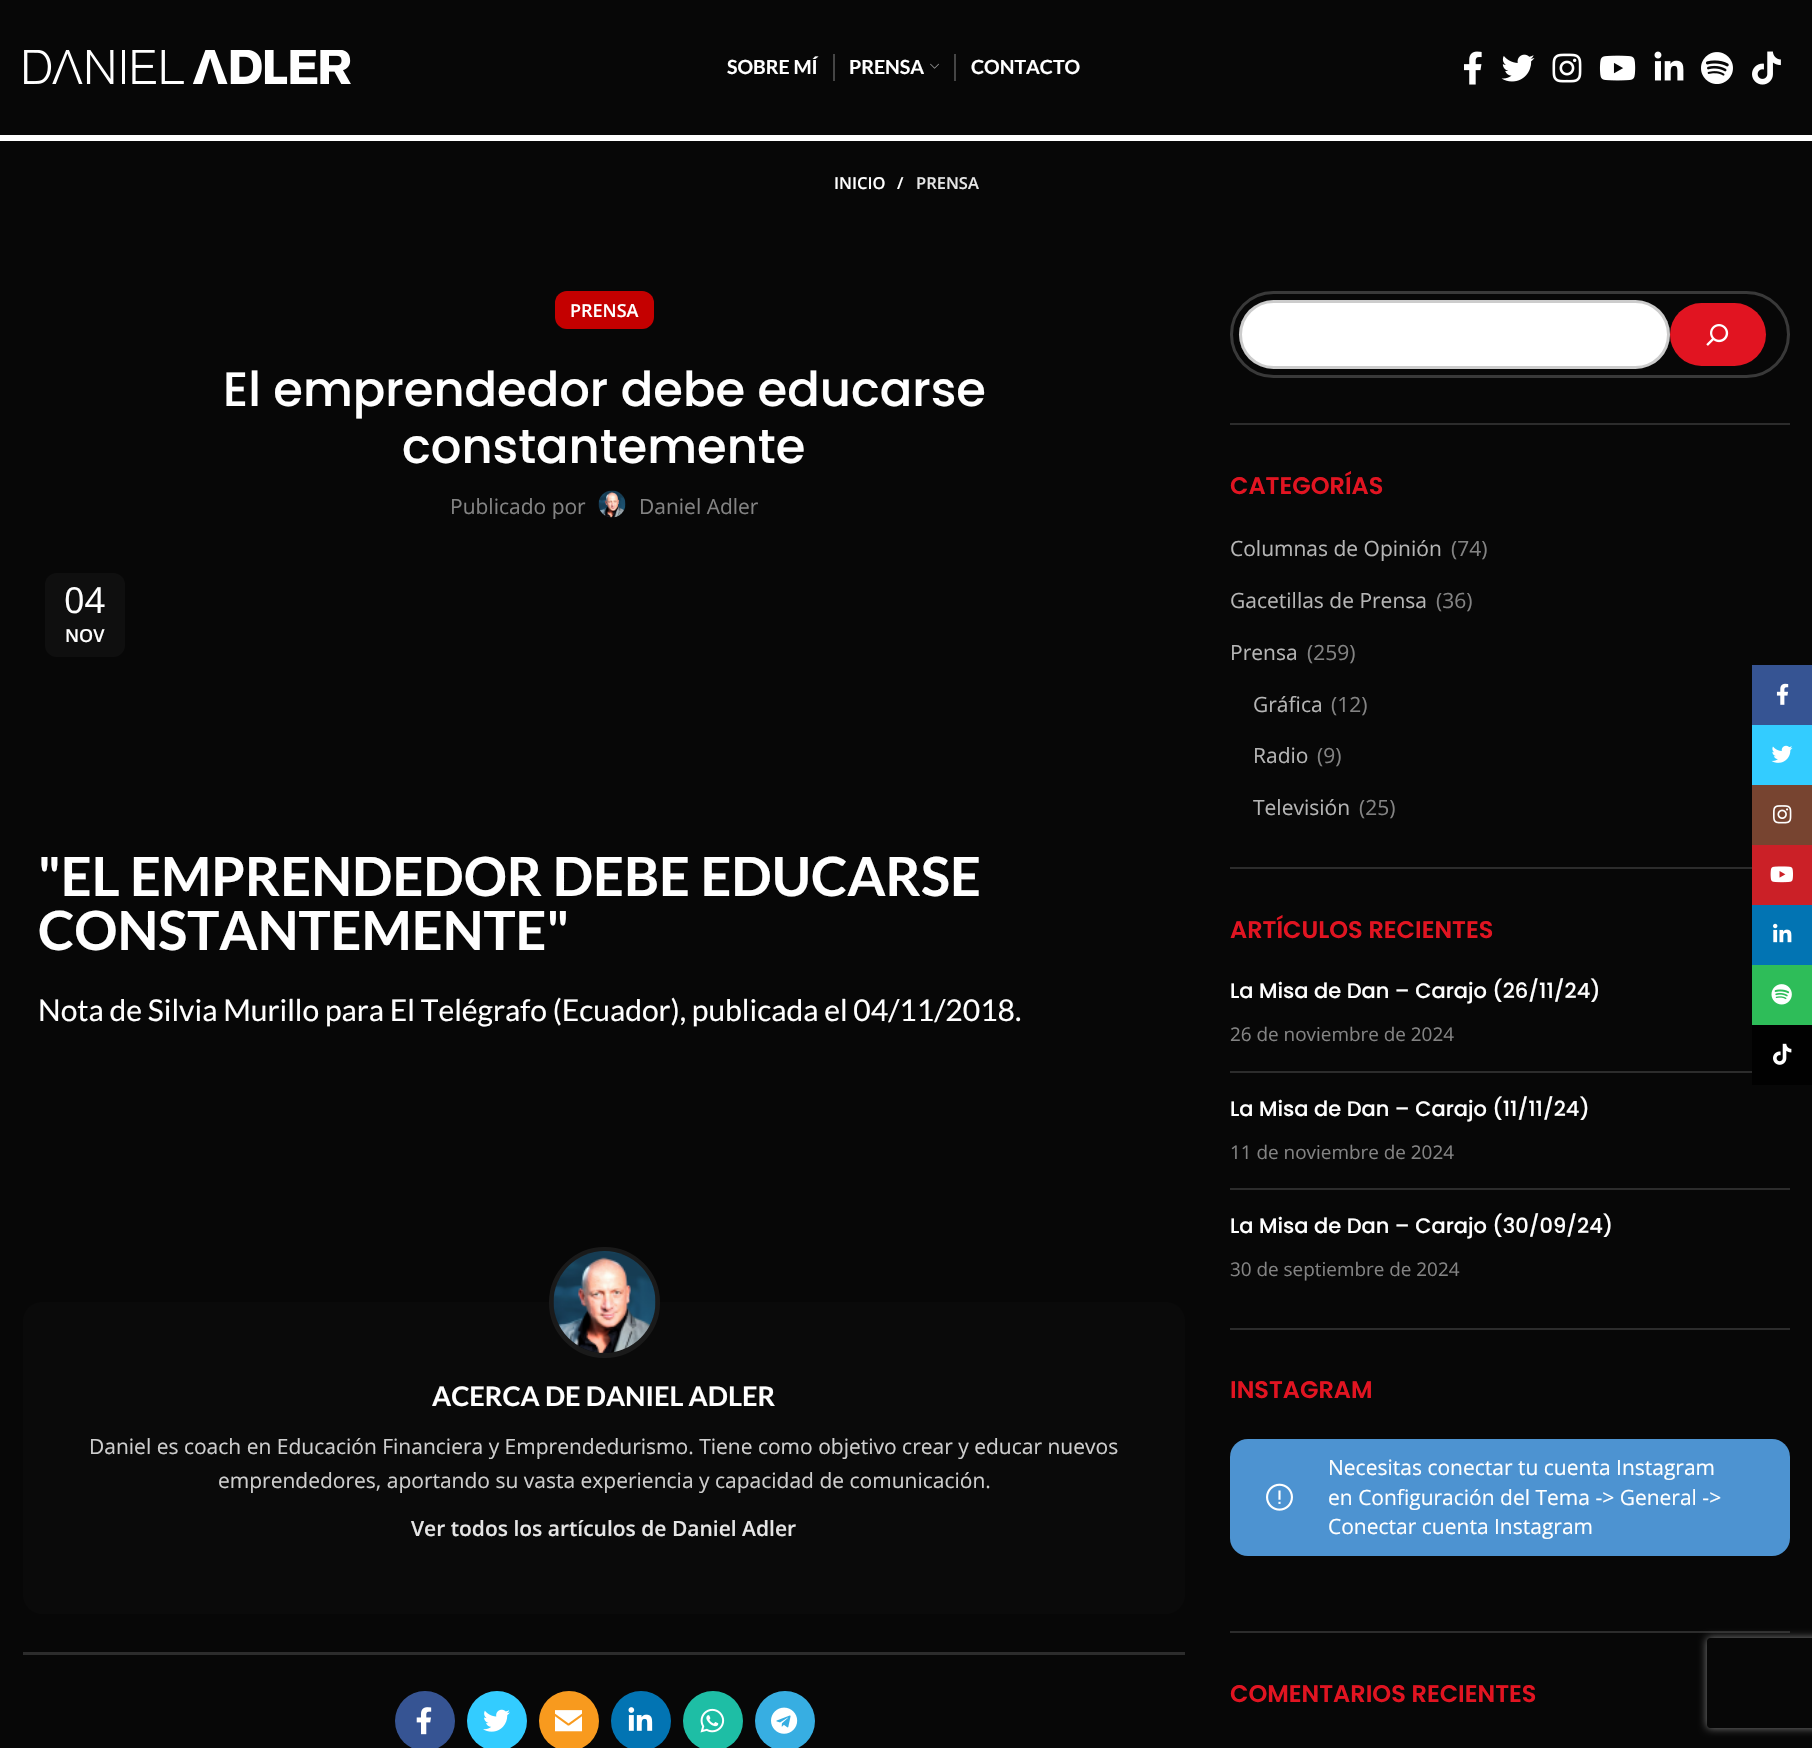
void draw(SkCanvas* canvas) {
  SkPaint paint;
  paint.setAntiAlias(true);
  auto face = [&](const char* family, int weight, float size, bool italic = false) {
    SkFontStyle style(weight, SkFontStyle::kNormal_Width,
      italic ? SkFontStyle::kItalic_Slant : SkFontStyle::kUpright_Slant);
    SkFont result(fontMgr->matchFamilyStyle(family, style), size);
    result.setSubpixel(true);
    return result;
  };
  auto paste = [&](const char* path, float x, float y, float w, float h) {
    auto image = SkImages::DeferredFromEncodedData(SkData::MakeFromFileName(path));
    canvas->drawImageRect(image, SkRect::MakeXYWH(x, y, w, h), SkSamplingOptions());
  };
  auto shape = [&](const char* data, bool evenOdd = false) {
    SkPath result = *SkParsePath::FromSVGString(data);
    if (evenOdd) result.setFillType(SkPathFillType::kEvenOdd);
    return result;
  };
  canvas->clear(0xff070707);
  paint.setColor(0xffffffff);
  canvas->drawRect(SkRect::MakeXYWH(0, 135, 1812, 6), paint);
  paste("img/1.png", 24, 50, 327, 34);
  paint.setColor(0xff454545);
  canvas->drawRect(SkRect::MakeXYWH(833, 54, 2, 27), paint);
  paste("img/2.png", 930, 63, 9, 6);
  canvas->drawRect(SkRect::MakeXYWH(954, 54, 2, 27), paint);
  paste("img/3.png", 1464, 51, 18, 34);
  paste("img/4.png", 1501, 54, 34, 28);
  paste("img/5.png", 1552, 53, 30, 30);
  paste("img/6.png", 1599, 55, 37, 26);
  paste("img/7.png", 1654, 51, 30, 30);
  paste("img/8.png", 1701, 52, 32, 32);
  paste("img/9.png", 1752, 51, 29, 34);
  paint.setColor(0xffc40000);
  canvas->drawRoundRect(SkRect::MakeXYWH(555, 291, 99, 38), 12, 12, paint);
  paste("img/10.png", 598, 490, 28, 28);
  paint.setColor(0xff0f0f0f);
  canvas->drawRoundRect(SkRect::MakeXYWH(45, 573, 80, 84), 12, 12, paint);
  paint.setColor(0xff0a0a0a);
  canvas->drawRoundRect(SkRect::MakeXYWH(23, 1302, 1162, 312), 20, 20, paint);
  paint.setStroke(true);
  paint.setStrokeWidth(5);
  paint.setColor(0xff1a1a1a);
  canvas->drawCircle(604.5f, 1302.5f, 53, paint);
  paste("img/11.png", 553, 1251, 103, 102);
  paint.setStroke(false);
  paint.setColor(0xff2c2c2c);
  canvas->drawRect(SkRect::MakeXYWH(23, 1652, 1162, 3), paint);
  paint.setColor(0xff365493);
  canvas->drawCircle(425, 1721, 30, paint);
  paste("img/12.png", 416, 1707, 16, 28);
  paint.setColor(0xff33ccff);
  canvas->drawCircle(497, 1721, 30, paint);
  paste("img/13.png", 483, 1709, 27, 23);
  paint.setColor(0xfff89a1e);
  canvas->drawCircle(569, 1721, 30, paint);
  paste("img/14.png", 555, 1710, 27, 22);
  paint.setColor(0xff0274b3);
  canvas->drawCircle(641, 1721, 30, paint);
  paste("img/15.png", 628, 1707, 25, 24);
  paint.setColor(0xff1ebea5);
  canvas->drawCircle(713, 1721, 30, paint);
  paste("img/16.png", 700, 1708, 25, 25);
  paint.setColor(0xff37aee2);
  canvas->drawCircle(785, 1721, 30, paint);
  paste("img/17.png", 771, 1707, 27, 27);
  paint.setColor(0xff2c2c2c);
  canvas->drawRect(SkRect::MakeXYWH(1230, 423, 560, 2), paint);
  paint.setStroke(true);
  paint.setStrokeWidth(3);
  paint.setColor(0xff393939);
  canvas->drawRoundRect(SkRect::MakeXYWH(1231.5f, 292.5f, 557, 84), 42, 42, paint);
  paint.setStroke(false);
  paint.setColor(0xffffffff);
  canvas->drawRoundRect(SkRect::MakeXYWH(1239, 300, 431, 69), 34.5f, 34.5f, paint);
  paint.setStroke(true);
  paint.setColor(0x33000000);
  canvas->drawRoundRect(SkRect::MakeXYWH(1240.5f, 301.5f, 428, 66), 33, 33, paint);
  paint.setStroke(false);
  paint.setColor(0xffe11421);
  canvas->drawRoundRect(SkRect::MakeXYWH(1670, 303, 96, 63), 31.5f, 31.5f, paint);
  paste("img/18.png", 1706, 324, 23, 22);
  {
    const struct { float x, y, w, h; SkColor color; } items[] = {
      {1230, 867, 522, 2, 0xff2c2c2c},
      {1230, 1328, 560, 2, 0xff2c2c2c},
      {1230, 1071, 522, 2, 0xff2c2c2c},
      {1230, 1188, 560, 2, 0xff2c2c2c},
      {1230, 1631, 560, 2, 0xff2c2c2c},
    };
    for (auto [x, y, w, h, color] : items) {
      paint.setColor(color);
      canvas->drawRect(SkRect::MakeXYWH(x, y, w, h), paint);
    }
  }
  paint.setColor(0xff4d93d1);
  canvas->drawRoundRect(SkRect::MakeXYWH(1230, 1439, 560, 117), 18, 18, paint);
  paste("img/19.png", 1266, 1483, 27, 28);
  paint.setColor(0xff365493);
  canvas->drawRect(SkRect::MakeXYWH(1752, 665, 60, 60), paint);
  paste("img/20.png", 1776, 683, 13, 22);
  paint.setColor(0xff33ccff);
  canvas->drawRect(SkRect::MakeXYWH(1752, 725, 60, 60), paint);
  paste("img/21.png", 1771, 745, 22, 18);
  paint.setColor(0xff774430);
  canvas->drawRect(SkRect::MakeXYWH(1752, 785, 60, 60), paint);
  paste("img/22.png", 1773, 805, 19, 19);
  paint.setColor(0xffcb2027);
  canvas->drawRect(SkRect::MakeXYWH(1752, 845, 60, 60), paint);
  paste("img/23.png", 1770, 866, 23, 17);
  paint.setColor(0xff0274b3);
  canvas->drawRect(SkRect::MakeXYWH(1752, 905, 60, 60), paint);
  paste("img/24.png", 1773, 923, 19, 20);
  paint.setColor(0xff2ebd59);
  canvas->drawRect(SkRect::MakeXYWH(1752, 965, 60, 60), paint);
  paste("img/25.png", 1771, 984, 21, 21);
  paint.setColor(0xff010101);
  canvas->drawRect(SkRect::MakeXYWH(1752, 1025, 60, 60), paint);
  paste("img/26.png", 1773, 1043, 19, 22);
  canvas->save();
  canvas->clipPath(shape("M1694 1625H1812V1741H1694ZM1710 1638H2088C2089.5 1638 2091 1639.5 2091 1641V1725C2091 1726.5 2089.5 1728 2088 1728H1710C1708.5 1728 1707 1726.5 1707 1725V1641C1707 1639.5 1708.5 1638 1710 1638Z", true), true);
  paint.setColor(0xff808080);
  paint.setMaskFilter(SkMaskFilter::MakeBlur(kNormal_SkBlurStyle, 4));
  canvas->drawRoundRect(SkRect::MakeXYWH(1707, 1638, 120, 90), 3, 3, paint);
  paint.setMaskFilter(nullptr);
  canvas->restore();
  auto f0 = face("Lato", 700, 19.5f);
  paint.setColor(0xffffffff);
  {
    const struct { const char* s; float x, y; } items[] = {
      {"SOBRE MÍ", 727, 74},
      {"PRENSA", 849, 74},
      {"CONTACTO", 971, 74},
    };
    for (auto [s, x, y] : items) {
      canvas->drawString(s, x, y, f0, paint);
    }
  }
  auto f1 = face("Open Sans", 600, 16.5f);
  canvas->drawString("INICIO", 834, 189, f1, paint);
  canvas->drawString("/", 897, 189, f1, paint);
  paint.setColor(0xffe6e6e6);
  canvas->drawString("PRENSA", 916, 189, f1, paint);
  auto f2 = face("Open Sans", 600, 18);
  paint.setColor(0xffffffff);
  canvas->drawString("PRENSA", 570, 317, f2, paint);
  auto f3 = face("Poppins", 500, 48);
  canvas->drawString("El emprendedor debe educarse", 223, 406, f3, paint);
  canvas->drawString("constantemente", 402, 463, f3, paint);
  auto f4 = face("Open Sans", 400, 21);
  paint.setColor(0xff838383);
  canvas->drawString("Publicado por", 450, 514, f4, paint);
  canvas->drawString("Daniel Adler", 639, 514, f4, paint);
  auto f5 = face("Open Sans", 400, 36);
  paint.setColor(0xffffffff);
  canvas->drawString("04", 64, 613, f5, paint);
  canvas->drawString("NOV", 65, 642, f2, paint);
  auto f6 = face("Lato", 700, 54);
  canvas->drawString("\"EL EMPRENDEDOR DEBE EDUCARSE", 38, 896, f6, paint);
  canvas->drawString("CONSTANTEMENTE\"", 38, 950, f6, paint);
  auto f7 = face("Lato", 400, 30);
  canvas->drawString("Nota de Silvia Murillo para El Telégrafo (Ecuador), publicada el 04/11/2018.", 38, 1021, f7, paint);
  auto f8 = face("Lato", 700, 27);
  canvas->drawString("ACERCA DE DANIEL ADLER", 432, 1406, f8, paint);
  paint.setColor(0xffcecece);
  canvas->drawString("Daniel es coach en Educación Financiera y Emprendedurismo. Tiene como objetivo crear y educar nuevos", 89, 1454, f4, paint);
  canvas->drawString("emprendedores, aportando su vasta experiencia y capacidad de comunicación.", 218, 1488, f4, paint);
  auto f9 = face("Open Sans", 600, 21);
  paint.setColor(0xffe6e6e6);
  canvas->drawString("Ver todos los artículos de Daniel Adler", 411, 1536, f9, paint);
  auto f10 = face("Poppins", 600, 24);
  paint.setColor(0xffe11421);
  canvas->drawString("CATEGORÍAS", 1230, 494, f10, paint);
  paint.setColor(0xffb5b5b5);
  canvas->drawString("Columnas de Opinión", 1230, 556, f4, paint);
  paint.setColor(0xff838383);
  canvas->drawString("(74)", 1451, 556, f4, paint);
  paint.setColor(0xffb5b5b5);
  canvas->drawString("Gacetillas de Prensa", 1230, 608, f4, paint);
  paint.setColor(0xff838383);
  canvas->drawString("(36)", 1436, 608, f4, paint);
  paint.setColor(0xffb5b5b5);
  canvas->drawString("Prensa", 1230, 660, f4, paint);
  paint.setColor(0xff838383);
  canvas->drawString("(259)", 1307, 660, f4, paint);
  paint.setColor(0xffb5b5b5);
  canvas->drawString("Gráfica", 1253, 712, f4, paint);
  paint.setColor(0xff838383);
  canvas->drawString("(12)", 1331, 712, f4, paint);
  paint.setColor(0xffb5b5b5);
  canvas->drawString("Radio", 1253, 763, f4, paint);
  paint.setColor(0xff838383);
  canvas->drawString("(9)", 1317, 763, f4, paint);
  paint.setColor(0xffb5b5b5);
  canvas->drawString("Televisión", 1253, 815, f4, paint);
  paint.setColor(0xff838383);
  canvas->drawString("(25)", 1359, 815, f4, paint);
  paint.setColor(0xffe11421);
  canvas->drawString("ARTÍCULOS RECIENTES", 1230, 938, f10, paint);
  auto f11 = face("Poppins", 500, 21);
  paint.setColor(0xffffffff);
  canvas->drawString("La Misa de Dan – Carajo (26/11/24)", 1230, 998, f11, paint);
  auto f12 = face("Open Sans", 400, 18.9f);
  paint.setColor(0xff838383);
  canvas->drawString("26 de noviembre de 2024", 1230, 1041, f12, paint);
  paint.setColor(0xffffffff);
  canvas->drawString("La Misa de Dan – Carajo (11/11/24)", 1230, 1116, f11, paint);
  paint.setColor(0xff838383);
  canvas->drawString("11 de noviembre de 2024", 1230, 1159, f12, paint);
  paint.setColor(0xffffffff);
  canvas->drawString("La Misa de Dan – Carajo (30/09/24)", 1230, 1233, f11, paint);
  paint.setColor(0xff838383);
  canvas->drawString("30 de septiembre de 2024", 1230, 1276, f12, paint);
  paint.setColor(0xffe11421);
  canvas->drawString("INSTAGRAM", 1230, 1398, f10, paint);
  paint.setColor(0xffffffff);
  {
    const struct { const char* s; float x, y; } items[] = {
      {"Necesitas conectar tu cuenta Instagram", 1328, 1475},
      {"en Configuración del Tema -> General ->", 1328, 1505},
      {"Conectar cuenta Instagram", 1328, 1534},
    };
    for (auto [s, x, y] : items) {
      canvas->drawString(s, x, y, f4, paint);
    }
  }
  paint.setColor(0xffe11421);
  canvas->drawString("COMENTARIOS RECIENTES", 1230, 1702, f10, paint);
}
